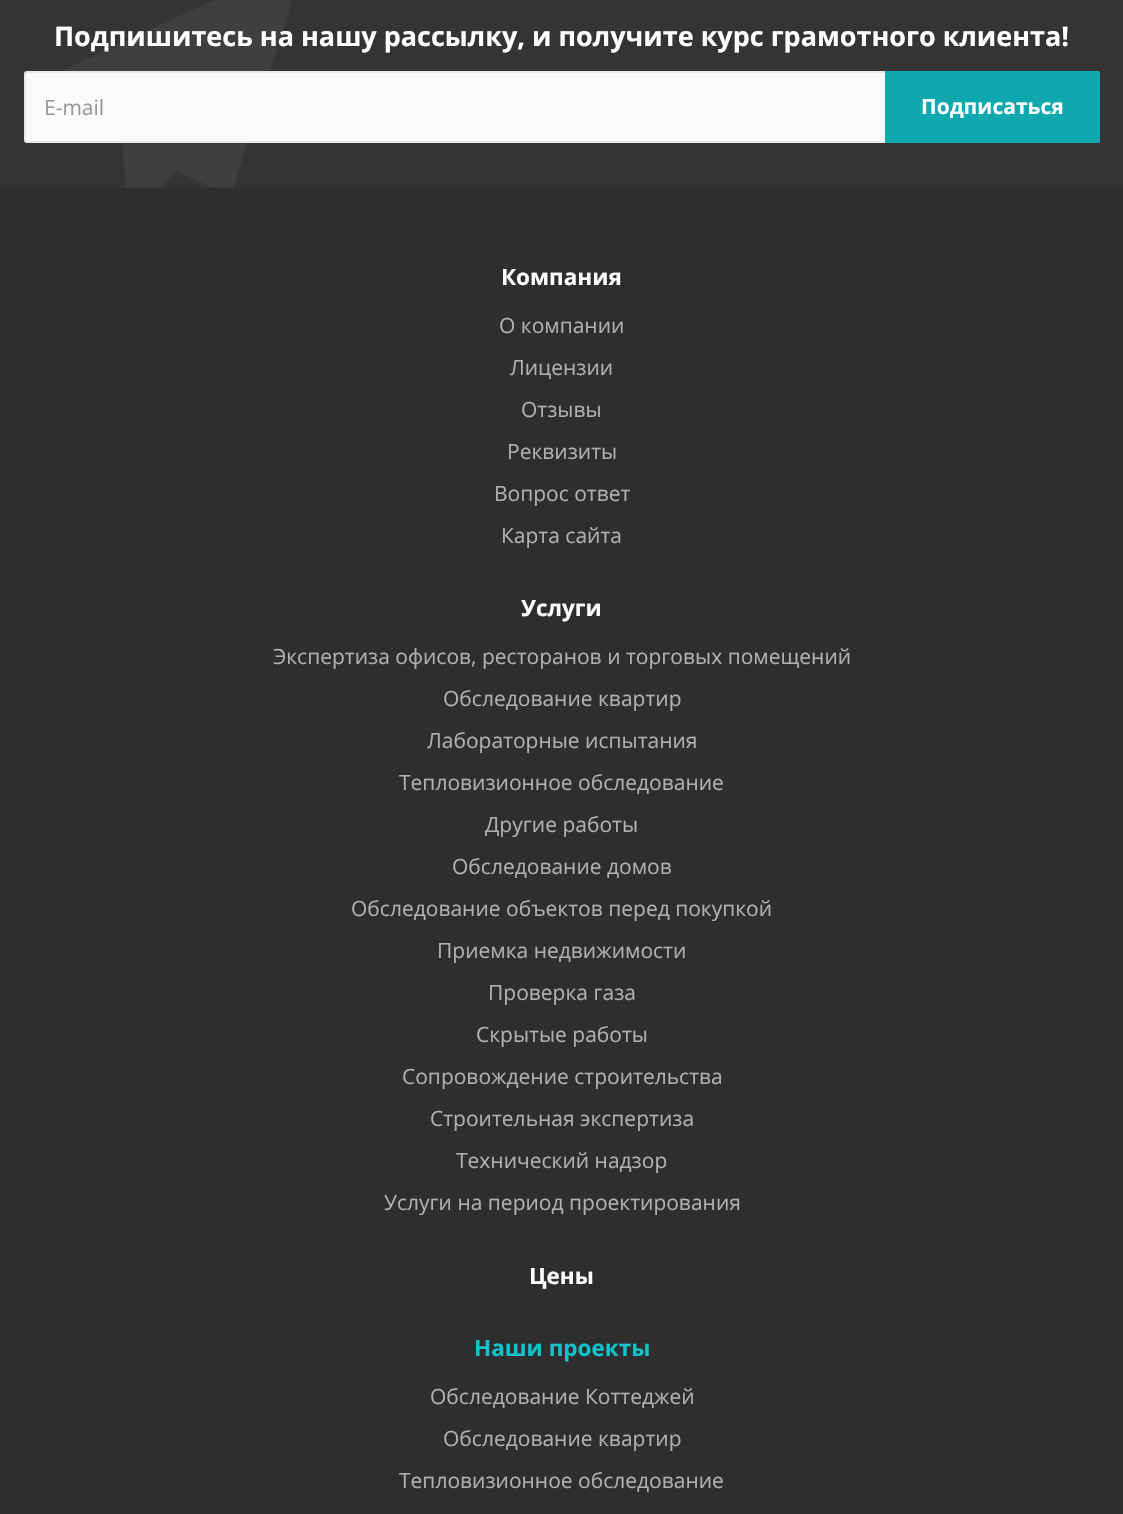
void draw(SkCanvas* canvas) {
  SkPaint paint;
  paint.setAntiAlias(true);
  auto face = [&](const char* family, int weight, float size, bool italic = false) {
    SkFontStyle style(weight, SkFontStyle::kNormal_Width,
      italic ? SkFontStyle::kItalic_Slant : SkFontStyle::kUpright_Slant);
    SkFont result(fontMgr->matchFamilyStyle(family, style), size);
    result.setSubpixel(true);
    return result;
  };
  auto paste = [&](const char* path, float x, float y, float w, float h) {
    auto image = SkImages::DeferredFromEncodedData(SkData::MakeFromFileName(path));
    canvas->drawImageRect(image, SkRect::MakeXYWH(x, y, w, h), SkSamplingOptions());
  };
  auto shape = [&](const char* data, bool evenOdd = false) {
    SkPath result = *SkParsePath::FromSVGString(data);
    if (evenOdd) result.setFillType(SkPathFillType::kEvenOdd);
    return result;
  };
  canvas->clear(0xff2e2e2f);
  paint.setColor(0xff343435);
  canvas->drawRect(SkRect::MakeXYWH(0, 0, 1123, 188), paint);
  paste("img/1.png", 62, 0, 230, 188);
  paint.setColor(0xfffbfbfb);
  canvas->drawRoundRect(SkRect::MakeXYWH(25, 72, 1074, 70), 2, 2, paint);
  paint.setStroke(true);
  paint.setStrokeWidth(2);
  paint.setColor(0xffe8e8e8);
  canvas->drawRoundRect(SkRect::MakeXYWH(25, 72, 1074, 70), 2, 2, paint);
  paint.setStroke(false);
  paint.setColor(0xff0fa8ae);
  canvas->drawPath(shape("M886 72H1097C1098 72 1099 73 1099 74V140C1099 141 1098 142 1097 142H886Z"), paint);
  paint.setStroke(true);
  canvas->drawPath(shape("M886 72H1097C1098 72 1099 73 1099 74V140C1099 141 1098 142 1097 142H886Z"), paint);
  auto f0 = face("Open Sans", 700, 27);
  paint.setStroke(false);
  paint.setColor(0xffffffff);
  canvas->drawString("Подпишитесь на нашу рассылку, и получите курс грамотного клиента!", 54, 46, f0, paint);
  auto f1 = face("Open Sans", 400, 21);
  paint.setColor(0xff999999);
  canvas->drawString("E-mail", 44, 115, f1, paint);
  auto f2 = face("Open Sans", 700, 21);
  paint.setColor(0xffffffff);
  canvas->drawString("Подписаться", 921, 114, f2, paint);
  auto f3 = face("Open Sans", 700, 22.5f);
  canvas->drawString("Компания", 501, 285, f3, paint);
  paint.setColor(0xffb0b0b0);
  {
    const struct { const char* s; float x, y; } items[] = {
      {"О компании", 499, 333},
      {"Лицензии", 510, 375},
      {"Отзывы", 521, 417},
      {"Реквизиты", 507, 459},
      {"Вопрос ответ", 494, 501},
      {"Карта сайта", 501, 543},
    };
    for (auto [s, x, y] : items) {
      canvas->drawString(s, x, y, f1, paint);
    }
  }
  paint.setColor(0xffffffff);
  canvas->drawString("Услуги", 521, 616, f3, paint);
  paint.setColor(0xffb0b0b0);
  {
    const struct { const char* s; float x, y; } items[] = {
      {"Экспертиза офисов, ресторанов и торговых помещений", 273, 664},
      {"Обследование квартир", 443, 706},
      {"Лабораторные испытания", 427, 748},
      {"Тепловизионное обследование", 399, 790},
      {"Другие работы", 485, 832},
      {"Обследование домов", 452, 874},
      {"Обследование объектов перед покупкой", 351, 916},
      {"Приемка недвижимости", 437, 958},
      {"Проверка газа", 488, 1000},
      {"Скрытые работы", 476, 1042},
      {"Сопровождение строительства", 402, 1084},
      {"Строительная экспертиза", 430, 1126},
      {"Технический надзор", 456, 1168},
      {"Услуги на период проектирования", 384, 1210},
    };
    for (auto [s, x, y] : items) {
      canvas->drawString(s, x, y, f1, paint);
    }
  }
  paint.setColor(0xffffffff);
  canvas->drawString("Цены", 529, 1284, f3, paint);
  paint.setColor(0xff11c3ca);
  canvas->drawString("Наши проекты", 474, 1356, f3, paint);
  paint.setColor(0xffb0b0b0);
  {
    const struct { const char* s; float x, y; } items[] = {
      {"Обследование Коттеджей", 430, 1404},
      {"Обследование квартир", 443, 1446},
      {"Тепловизионное обследование", 399, 1488},
    };
    for (auto [s, x, y] : items) {
      canvas->drawString(s, x, y, f1, paint);
    }
  }
}
